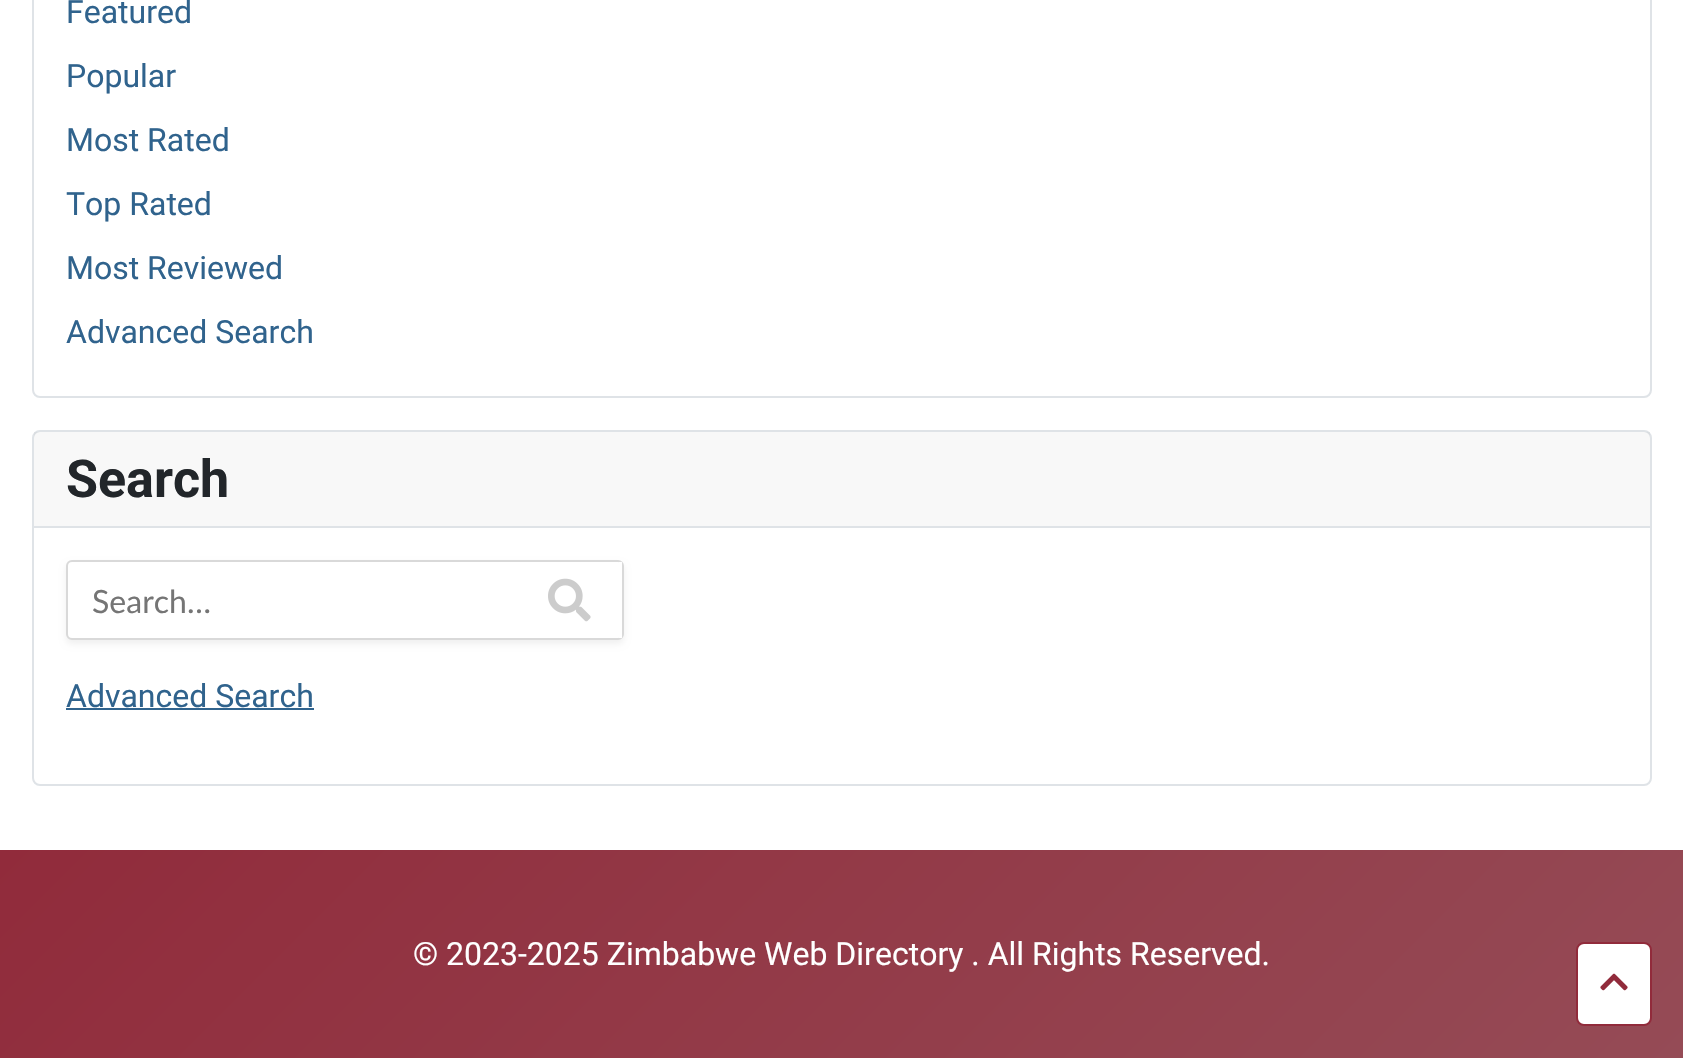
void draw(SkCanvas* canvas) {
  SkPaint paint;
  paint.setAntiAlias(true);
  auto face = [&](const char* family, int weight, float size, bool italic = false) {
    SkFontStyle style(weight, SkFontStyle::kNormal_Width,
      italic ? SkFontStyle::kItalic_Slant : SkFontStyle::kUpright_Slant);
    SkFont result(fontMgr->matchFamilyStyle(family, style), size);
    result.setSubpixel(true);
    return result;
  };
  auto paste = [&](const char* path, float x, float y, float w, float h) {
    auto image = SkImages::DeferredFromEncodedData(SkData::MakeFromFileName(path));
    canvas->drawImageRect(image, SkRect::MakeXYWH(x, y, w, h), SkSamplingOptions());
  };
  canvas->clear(0xffffffff);
  paint.setStroke(true);
  paint.setStrokeWidth(2);
  paint.setColor(0xffdfe3e7);
  canvas->drawRoundRect(SkRect::MakeXYWH(33, -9, 1618, 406), 7, 7, paint);
  canvas->drawRoundRect(SkRect::MakeXYWH(33, 431, 1618, 354), 7, 7, paint);
  paint.setStroke(false);
  paint.setColor(0x0822262a);
  canvas->drawRect(SkRect::MakeXYWH(34, 432, 1616, 94), paint);
  paint.setColor(0xffdfe3e7);
  canvas->drawRect(SkRect::MakeXYWH(34, 526, 1616, 2), paint);
  paint.setColor(0x0f000000);
  paint.setMaskFilter(SkMaskFilter::MakeBlur(kNormal_SkBlurStyle, 3));
  canvas->drawRoundRect(SkRect::MakeXYWH(66, 564, 558, 80), 6, 6, paint);
  paint.setMaskFilter(nullptr);
  paint.setColor(0xffffffff);
  canvas->drawRoundRect(SkRect::MakeXYWH(67, 561, 556, 78), 5, 5, paint);
  paint.setStroke(true);
  paint.setColor(0xffd9d9d9);
  canvas->drawRoundRect(SkRect::MakeXYWH(67, 561, 556, 78), 5, 5, paint);
  paint.setStroke(false);
  paint.setColor(0xffffffff);
  canvas->drawRect(SkRect::MakeXYWH(619, 562, 3, 76), paint);
  paste("img/1.png", 548, 578, 43, 44);
  paint.setColor(0xff30638d);
  canvas->drawRect(SkRect::MakeXYWH(66, 708, 248, 2), paint);
  {
    const SkColor colors[] = {0xff912b3b, 0xff954b56};
    const float stops[] = {0, 1};
    const SkPoint ends[] = {{369, 481}, {1315, 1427}};
    paint.setShader(SkGradientShader::MakeLinear(ends, colors, stops, 2, SkTileMode::kClamp));
    paint.setAlpha(255);
  }
  canvas->drawRect(SkRect::MakeXYWH(0, 850, 1683, 208), paint);
  paint.setShader(nullptr);
  paint.setColor(0xffffffff);
  canvas->drawRoundRect(SkRect::MakeXYWH(1577, 943, 74, 82), 7, 7, paint);
  paint.setStroke(true);
  paint.setColor(0xff912b3b);
  canvas->drawRoundRect(SkRect::MakeXYWH(1577, 943, 74, 82), 7, 7, paint);
  paste("img/2.png", 1600, 973, 28, 18);
  auto f0 = face("Roboto", 400, 32);
  paint.setStroke(false);
  paint.setColor(0xff30638d);
  {
    const struct { const char* s; float x, y; } items[] = {
      {"Featured", 66, 23},
      {"Popular", 66, 87},
      {"Most Rated", 66, 151},
      {"Top Rated", 66, 215},
      {"Most Reviewed", 66, 279},
      {"Advanced Search", 66, 343},
    };
    for (auto [s, x, y] : items) {
      canvas->drawString(s, x, y, f0, paint);
    }
  }
  auto f1 = face("Roboto", 700, 52);
  paint.setColor(0xff22262a);
  canvas->drawString("Search", 66, 497, f1, paint);
  auto f2 = face("Lato", 400, 32);
  paint.setColor(0xff757575);
  canvas->drawString("Search…", 92, 613, f2, paint);
  paint.setColor(0xff30638d);
  canvas->drawString("Advanced Search", 66, 707, f0, paint);
  paint.setColor(0xffffffff);
  canvas->drawString("© 2023-2025 Zimbabwe Web Directory . All Rights Reserved.", 413, 965, f0, paint);
}
